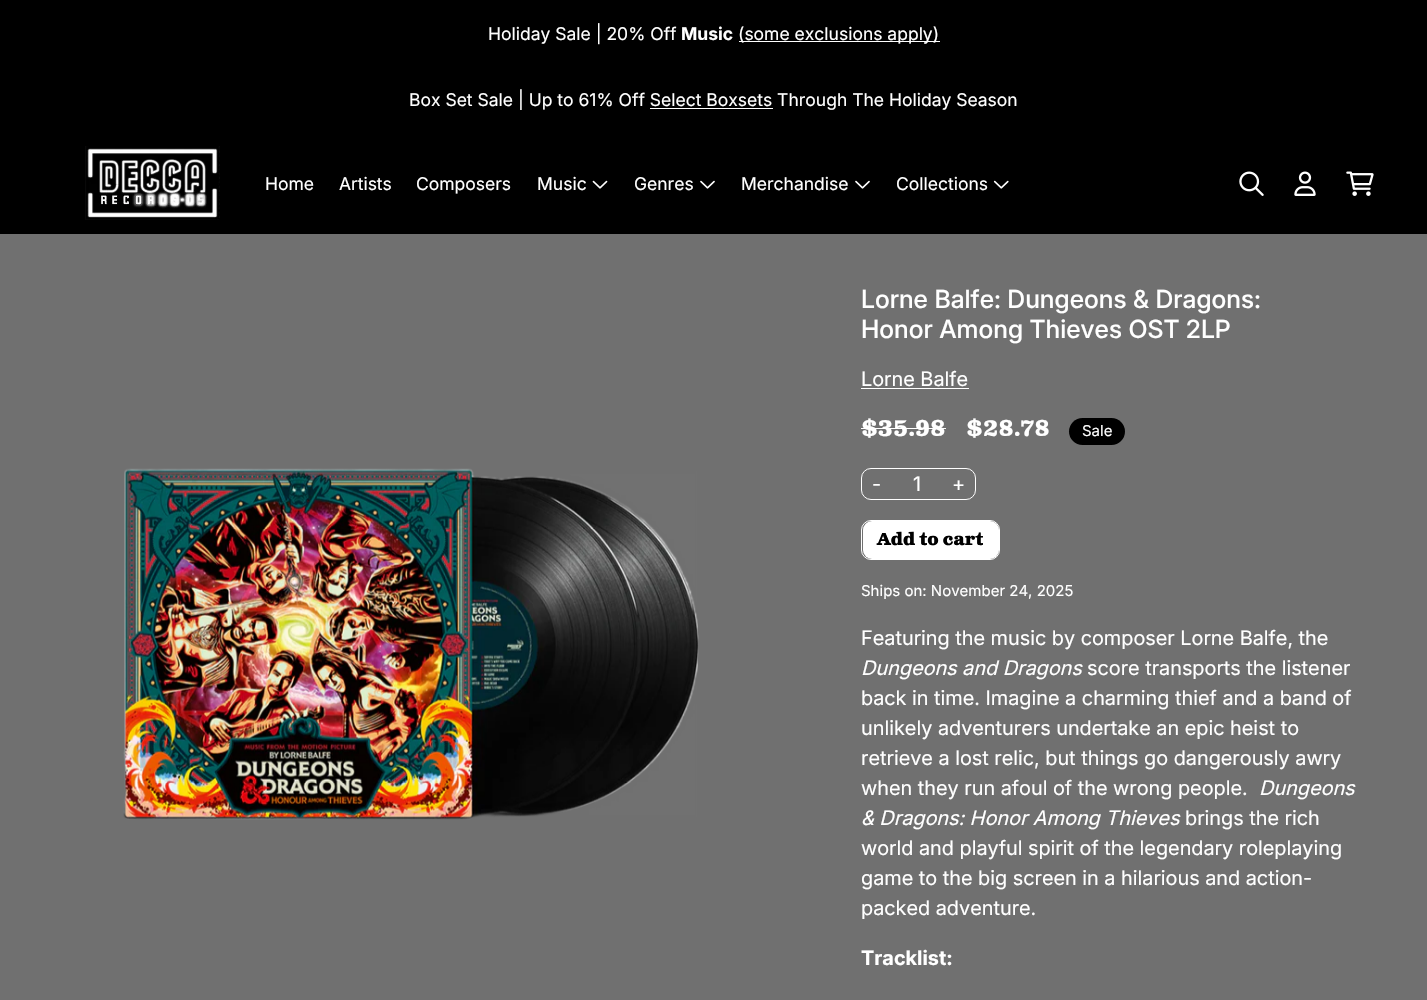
void draw(SkCanvas* canvas) {
  SkPaint paint;
  paint.setAntiAlias(true);
  auto face = [&](const char* family, int weight, float size, bool italic = false) {
    SkFontStyle style(weight, SkFontStyle::kNormal_Width,
      italic ? SkFontStyle::kItalic_Slant : SkFontStyle::kUpright_Slant);
    SkFont result(fontMgr->matchFamilyStyle(family, style), size);
    result.setSubpixel(true);
    return result;
  };
  auto paste = [&](const char* path, float x, float y, float w, float h) {
    auto image = SkImages::DeferredFromEncodedData(SkData::MakeFromFileName(path));
    canvas->drawImageRect(image, SkRect::MakeXYWH(x, y, w, h), SkSamplingOptions());
  };
  canvas->clear(0xff000000);
  paint.setColor(0xffffffff);
  canvas->drawRect(SkRect::MakeXYWH(739, 41, 201, 1), paint);
  canvas->drawRect(SkRect::MakeXYWH(650, 108, 123, 1), paint);
  paste("img/1.png", 85, 146, 135, 74);
  paste("img/2.png", 592, 180, 16, 9);
  paste("img/3.png", 700, 180, 15, 9);
  paste("img/3.png", 855, 180, 15, 9);
  paste("img/4.png", 993, 180, 16, 9);
  paste("img/5.png", 1239, 171, 25, 25);
  paste("img/6.png", 1294, 171, 22, 25);
  paste("img/7.png", 1346, 171, 28, 25);
  paint.setColor(0xff707070);
  canvas->drawRect(SkRect::MakeXYWH(0, 234, 1427, 766), paint);
  paste("img/8.png", 123, 468, 576, 352);
  paint.setColor(0xffffffff);
  canvas->drawRect(SkRect::MakeXYWH(861, 388, 108, 1), paint);
  canvas->drawRect(SkRect::MakeXYWH(861, 428, 85, 1), paint);
  paint.setColor(0xff000000);
  canvas->drawRoundRect(SkRect::MakeXYWH(1069, 418, 56, 27), 13.5f, 13.5f, paint);
  paint.setStroke(true);
  paint.setStrokeWidth(1);
  paint.setColor(0xffffffff);
  canvas->drawRoundRect(SkRect::MakeXYWH(861.5f, 468.5f, 114, 31), 9.5f, 9.5f, paint);
  paint.setStroke(false);
  canvas->drawRoundRect(SkRect::MakeXYWH(863, 521, 136, 38), 9, 9, paint);
  paint.setStroke(true);
  canvas->drawRoundRect(SkRect::MakeXYWH(861.5f, 520.5f, 138, 39), 9.5f, 9.5f, paint);
  auto f0 = face("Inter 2", 400, 17.5f);
  paint.setStroke(false);
  canvas->drawString("Holiday Sale | 20% Off", 488, 40, f0, paint);
  auto f1 = face("Inter 2", 700, 17.5f);
  canvas->drawString("Music", 681, 40, f1, paint);
  {
    const struct { const char* s; float x, y; } items[] = {
      {"(some exclusions apply)", 738, 40},
      {"Box Set Sale | Up to 61% Off Select Boxsets Through The Holiday Season", 409, 106},
      {"Home", 265, 190},
      {"Artists", 339, 190},
      {"Composers", 416, 190},
      {"Music", 537, 190},
      {"Genres", 634, 190},
      {"Merchandise", 741, 190},
      {"Collections", 896, 190},
    };
    for (auto [s, x, y] : items) {
      canvas->drawString(s, x, y, f0, paint);
    }
  }
  auto f2 = face("Inter", 500, 25);
  canvas->drawString("Lorne Balfe: Dungeons & Dragons:", 861, 308, f2, paint);
  canvas->drawString("Honor Among Thieves OST 2LP", 861, 338, f2, paint);
  auto f3 = face("Inter", 400, 20);
  canvas->drawString("Lorne Balfe", 861, 386, f3, paint);
  auto f4 = face("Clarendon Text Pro", 700, 22.5f);
  canvas->drawString("$35.98", 861, 436, f4, paint);
  canvas->drawString("$28.78", 966, 436, f4, paint);
  auto f5 = face("Inter 2", 400, 15);
  canvas->drawString("Sale", 1082, 436, f5, paint);
  {
    const struct { const char* s; float x, y; } items[] = {
      {"-", 872, 491},
      {"1", 913, 491},
      {"+", 952, 491},
    };
    for (auto [s, x, y] : items) {
      canvas->drawString(s, x, y, f3, paint);
    }
  }
  auto f6 = face("Clarendon Text Pro", 700, 17.5f);
  paint.setColor(0xff000000);
  canvas->drawString("Add to cart", 877, 545, f6, paint);
  paint.setColor(0xffffffff);
  canvas->drawString("Ships on: November 24, 2025", 861, 596, f5, paint);
  canvas->drawString("Featuring the music by composer Lorne Balfe, the", 861, 645, f3, paint);
  auto f7 = face("Inter", 400, 20, true);
  canvas->drawString("Dungeons and Dragons", 861, 675, f7, paint);
  {
    const struct { const char* s; float x, y; } items[] = {
      {"score transports the listener", 1087, 675},
      {"back in time. Imagine a charming thief and a band of", 861, 705},
      {"unlikely adventurers undertake an epic heist to", 861, 735},
      {"retrieve a lost relic, but things go dangerously awry", 861, 765},
      {"when they run afoul of the wrong people.", 861, 795},
    };
    for (auto [s, x, y] : items) {
      canvas->drawString(s, x, y, f3, paint);
    }
  }
  canvas->drawString("Dungeons", 1259, 795, f7, paint);
  canvas->drawString("& Dragons: Honor Among Thieves", 861, 825, f7, paint);
  {
    const struct { const char* s; float x, y; } items[] = {
      {"brings the rich", 1185, 825},
      {"world and playful spirit of the legendary roleplaying", 861, 855},
      {"game to the big screen in a hilarious and action-", 861, 885},
      {"packed adventure.", 861, 915},
    };
    for (auto [s, x, y] : items) {
      canvas->drawString(s, x, y, f3, paint);
    }
  }
  auto f8 = face("Inter", 700, 20);
  canvas->drawString("Tracklist:", 861, 965, f8, paint);
}
